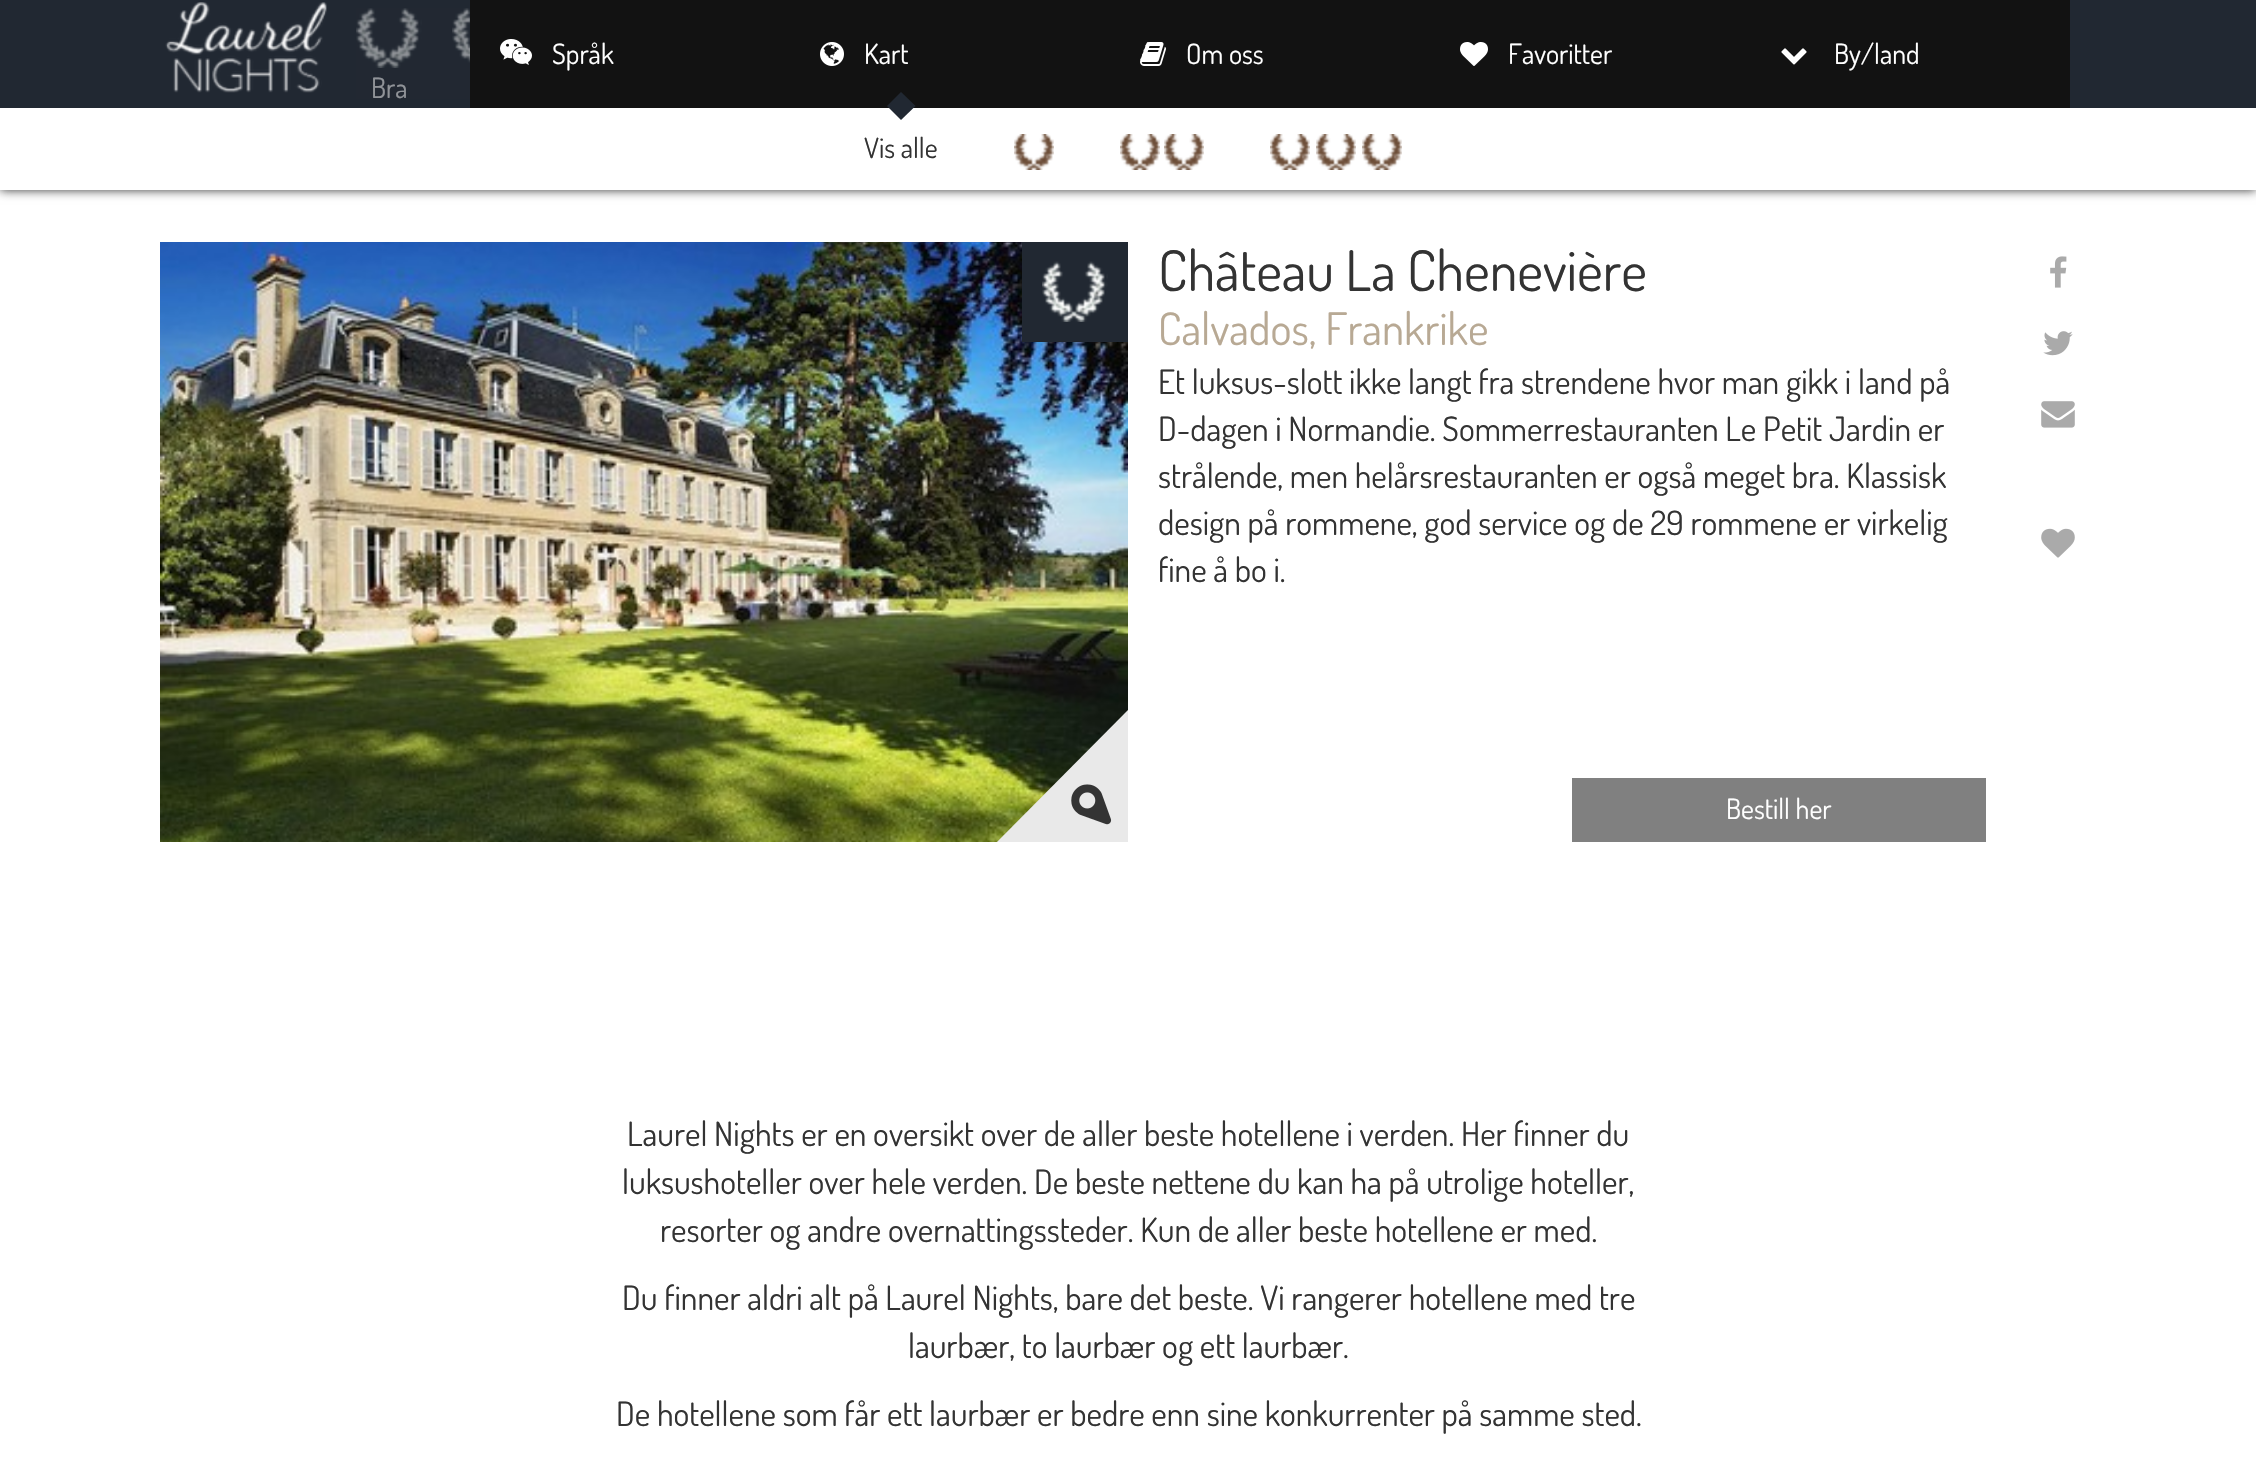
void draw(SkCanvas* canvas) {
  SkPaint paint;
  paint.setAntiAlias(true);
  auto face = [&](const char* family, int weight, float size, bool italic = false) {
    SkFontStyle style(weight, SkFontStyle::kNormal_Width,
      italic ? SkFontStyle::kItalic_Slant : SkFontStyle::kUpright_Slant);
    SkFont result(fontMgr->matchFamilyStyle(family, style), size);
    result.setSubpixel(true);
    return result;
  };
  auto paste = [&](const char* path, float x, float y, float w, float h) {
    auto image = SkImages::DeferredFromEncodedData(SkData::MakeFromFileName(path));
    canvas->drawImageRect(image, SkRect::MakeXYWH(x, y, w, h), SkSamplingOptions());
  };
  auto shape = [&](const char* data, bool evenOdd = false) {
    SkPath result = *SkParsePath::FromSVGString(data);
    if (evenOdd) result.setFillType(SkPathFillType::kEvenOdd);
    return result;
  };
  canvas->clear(0xffffffff);
  paint.setColor(0xff343434);
  paint.setMaskFilter(SkMaskFilter::MakeBlur(kNormal_SkBlurStyle, 5));
  canvas->drawRect(SkRect::MakeXYWH(0, -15, 2256, 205), paint);
  paint.setMaskFilter(nullptr);
  paint.setColor(0xff212832);
  canvas->drawRect(SkRect::MakeXYWH(0, 0, 2256, 108), paint);
  paste("img/1.png", 165, 2, 162, 91);
  paint.setColor(0xff121212);
  canvas->drawRect(SkRect::MakeXYWH(470, 0, 1600, 108), paint);
  paste("img/2.png", 500, 39, 32, 26);
  paste("img/3.png", 820, 42, 24, 24);
  paste("img/4.png", 1140, 42, 26, 24);
  paste("img/5.png", 1460, 42, 28, 24);
  paste("img/6.png", 1781, 48, 26, 17);
  paste("img/7.png", 452, 8, 18, 55);
  paste("img/8.png", 356, 8, 66, 60);
  paint.setColor(0xffffffff);
  canvas->drawRect(SkRect::MakeXYWH(0, 108, 2256, 82), paint);
  paint.setColor(0xff212832);
  canvas->drawPath(shape("M901 92L915.5 106L901 120L887 106Z"), paint);
  paste("img/9.png", 1014, 134, 40, 36);
  paste("img/9.png", 1120, 134, 40, 36);
  paste("img/9.png", 1164, 134, 40, 36);
  paste("img/9.png", 1270, 134, 40, 36);
  paste("img/9.png", 1316, 134, 40, 36);
  paste("img/9.png", 1362, 134, 40, 36);
  paste("img/10.png", 160, 242, 968, 600);
  canvas->drawRect(SkRect::MakeXYWH(1022, 242, 106, 100), paint);
  paste("img/11.png", 1042, 261, 66, 61);
  canvas->save();
  canvas->clipRect(SkRect::MakeXYWH(160, 242, 968, 600));
  paint.setColor(0xffe9e9e9);
  canvas->drawPath(shape("M992 847L1133 705L1204 776L1063 917Z"), paint);
  canvas->restore();
  paste("img/12.png", 1071, 784, 41, 41);
  paste("img/13.png", 2050, 256, 17, 32);
  paste("img/14.png", 2043, 331, 30, 25);
  paste("img/15.png", 2041, 401, 34, 27);
  paste("img/16.png", 2041, 528, 34, 30);
  paint.setColor(0xff808080);
  canvas->drawRect(SkRect::MakeXYWH(1572, 778, 414, 64), paint);
  auto f0 = face("Dosis", 400, 28);
  paint.setColor(0xffffffff);
  {
    const struct { const char* s; float x, y; } items[] = {
      {"Språk", 552, 64},
      {"Kart", 864, 64},
      {"Om oss", 1186, 64},
      {"Favoritter", 1508, 64},
      {"By/land", 1834, 64},
      {"Bra", 371, 98},
    };
    for (auto [s, x, y] : items) {
      canvas->drawString(s, x, y, f0, paint);
    }
  }
  paint.setColor(0x80212832);
  canvas->drawRect(SkRect::MakeXYWH(356, 8, 114, 91), paint);
  paint.setColor(0xff333333);
  canvas->drawString("Vis alle", 864, 158, f0, paint);
  auto f1 = face("Dosis", 400, 56);
  canvas->drawString("Château La Chenevière", 1158, 291, f1, paint);
  auto f2 = face("Dosis", 400, 44.75f);
  paint.setColor(0xffb8a994);
  canvas->drawString("Calvados, Frankrike", 1158, 345, f2, paint);
  auto f3 = face("Dosis", 400, 33.6f);
  paint.setColor(0xff333333);
  {
    const struct { const char* s; float x, y; } items[] = {
      {"Et luksus-slott ikke langt fra strendene hvor man gikk i land på", 1158, 394},
      {"D-dagen i Normandie. Sommerrestauranten Le Petit Jardin er", 1158, 441},
      {"strålende, men helårsrestauranten er også meget bra. Klassisk", 1158, 488},
      {"design på rommene, god service og de 29 rommene er virkelig", 1158, 535},
      {"fine å bo i.", 1158, 582},
    };
    for (auto [s, x, y] : items) {
      canvas->drawString(s, x, y, f3, paint);
    }
  }
  paint.setColor(0xffffffff);
  canvas->drawString("Bestill her", 1726, 819, f0, paint);
  paint.setColor(0xff333333);
  {
    const struct { const char* s; float x, y; } items[] = {
      {"Laurel Nights er en oversikt over de aller beste hotellene i verden. Her finner du", 627, 1146},
      {"luksushoteller over hele verden. De beste nettene du kan ha på utrolige hoteller,", 622, 1194},
      {"resorter og andre overnattingssteder. Kun de aller beste hotellene er med.", 660, 1242},
      {"Du finner aldri alt på Laurel Nights, bare det beste. Vi rangerer hotellene med tre", 622, 1310},
      {"laurbær, to laurbær og ett laurbær.", 908, 1358},
      {"De hotellene som får ett laurbær er bedre enn sine konkurrenter på samme sted.", 616, 1426},
    };
    for (auto [s, x, y] : items) {
      canvas->drawString(s, x, y, f3, paint);
    }
  }
}
